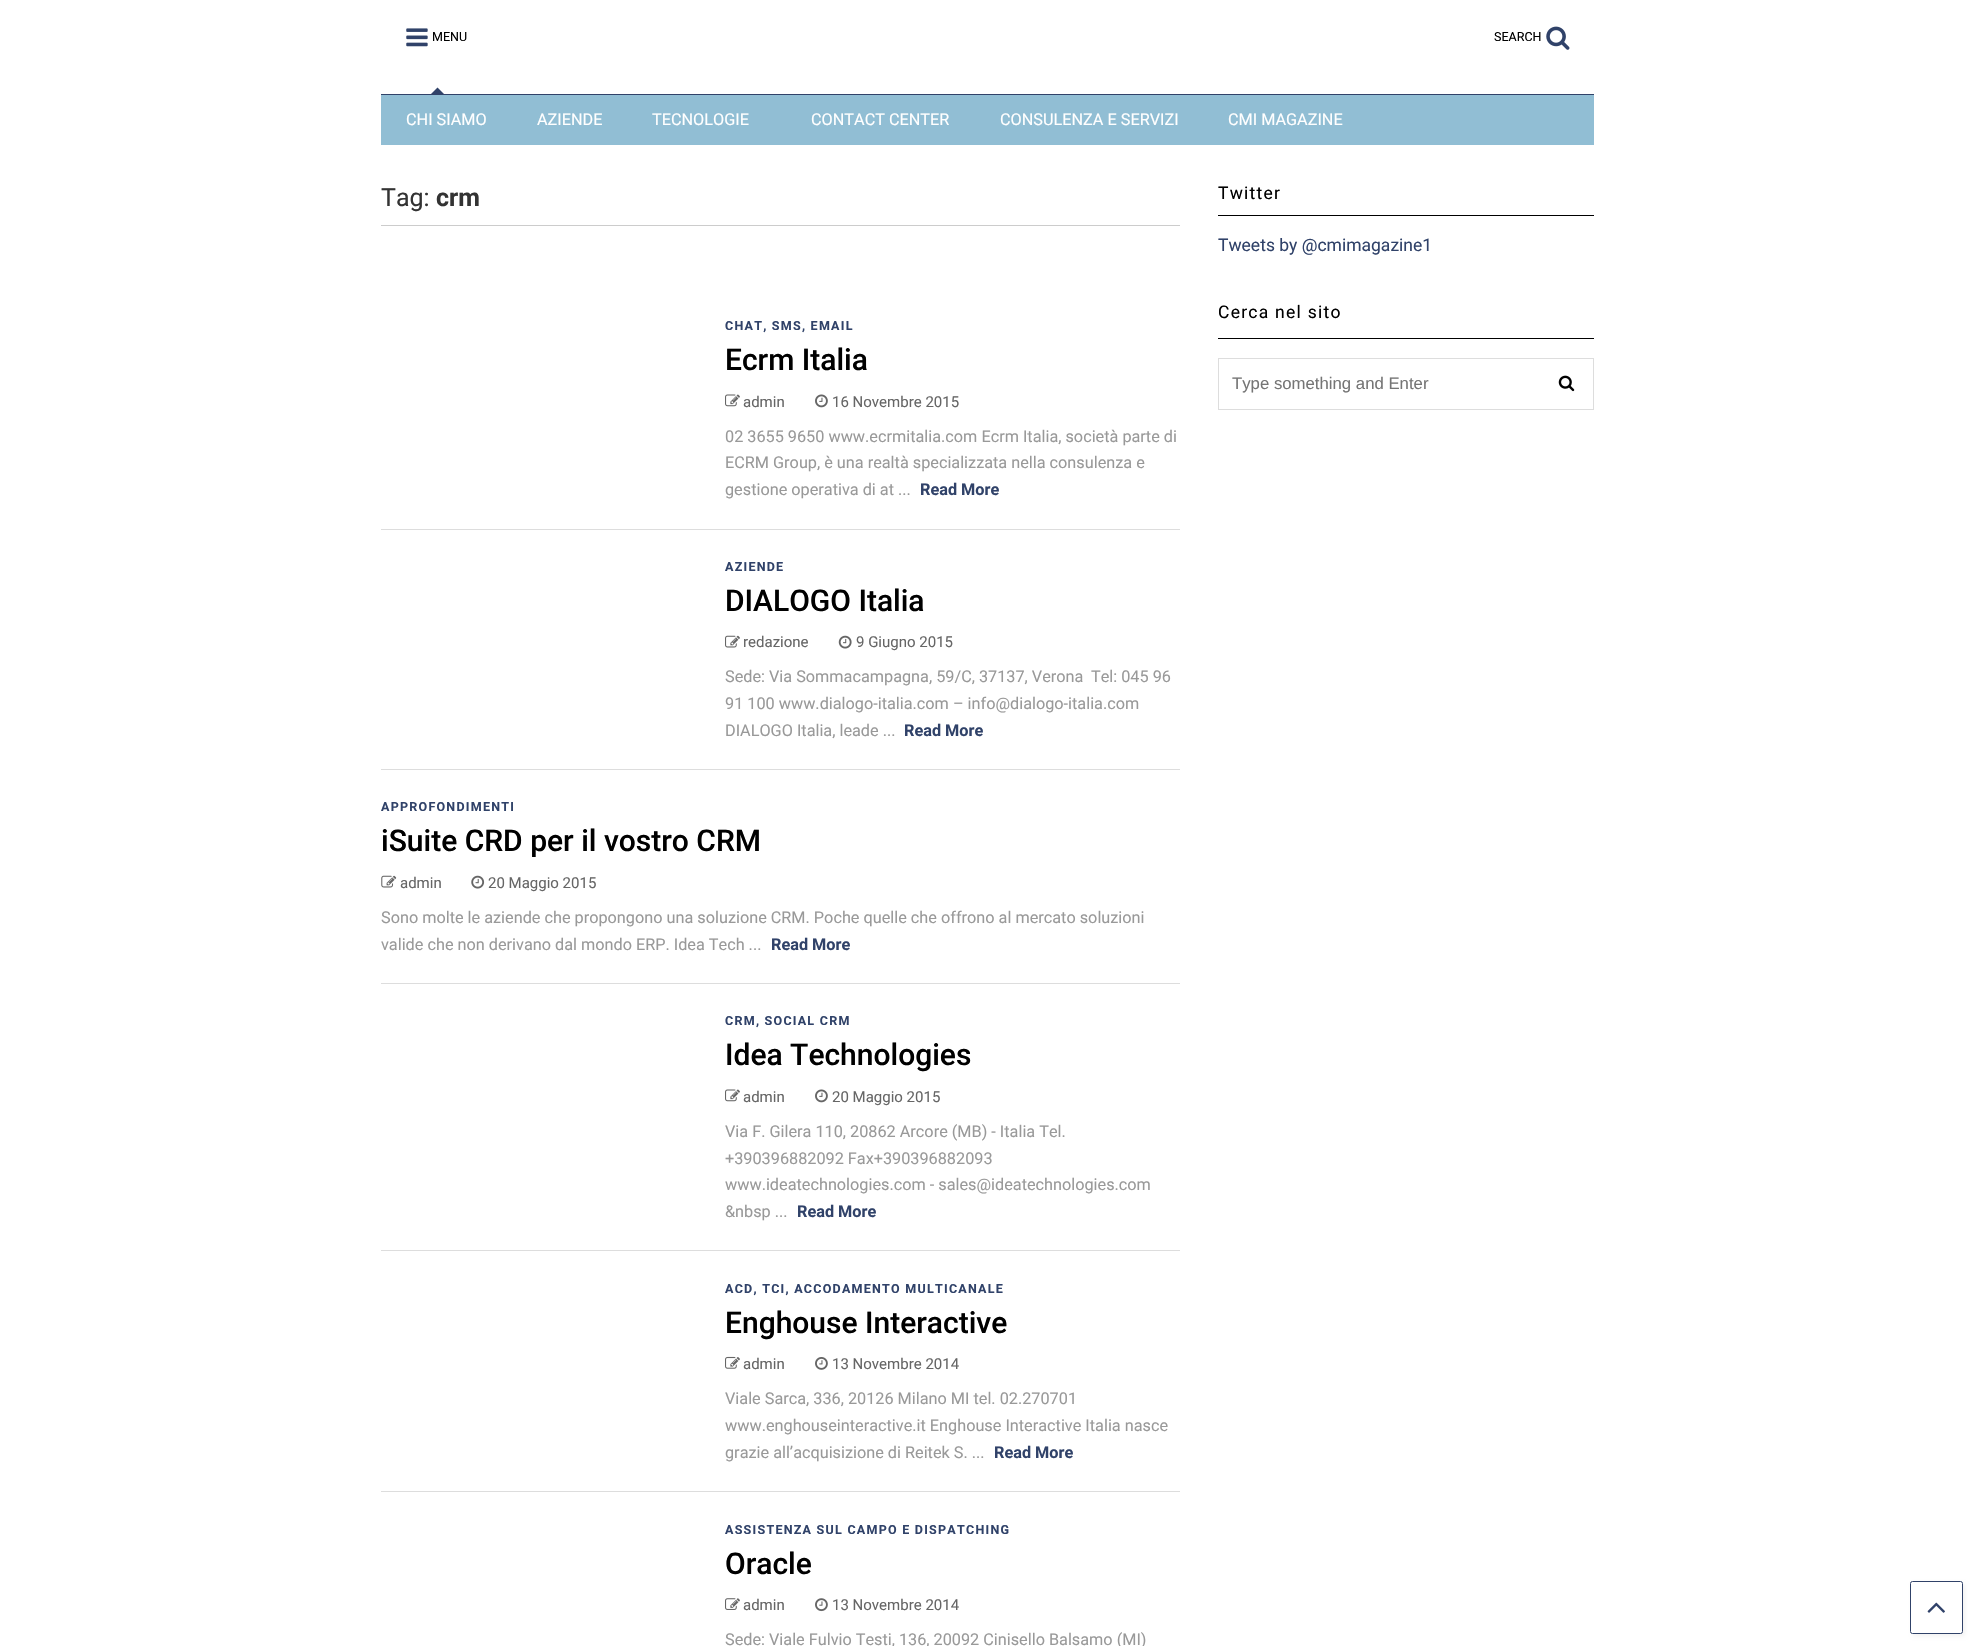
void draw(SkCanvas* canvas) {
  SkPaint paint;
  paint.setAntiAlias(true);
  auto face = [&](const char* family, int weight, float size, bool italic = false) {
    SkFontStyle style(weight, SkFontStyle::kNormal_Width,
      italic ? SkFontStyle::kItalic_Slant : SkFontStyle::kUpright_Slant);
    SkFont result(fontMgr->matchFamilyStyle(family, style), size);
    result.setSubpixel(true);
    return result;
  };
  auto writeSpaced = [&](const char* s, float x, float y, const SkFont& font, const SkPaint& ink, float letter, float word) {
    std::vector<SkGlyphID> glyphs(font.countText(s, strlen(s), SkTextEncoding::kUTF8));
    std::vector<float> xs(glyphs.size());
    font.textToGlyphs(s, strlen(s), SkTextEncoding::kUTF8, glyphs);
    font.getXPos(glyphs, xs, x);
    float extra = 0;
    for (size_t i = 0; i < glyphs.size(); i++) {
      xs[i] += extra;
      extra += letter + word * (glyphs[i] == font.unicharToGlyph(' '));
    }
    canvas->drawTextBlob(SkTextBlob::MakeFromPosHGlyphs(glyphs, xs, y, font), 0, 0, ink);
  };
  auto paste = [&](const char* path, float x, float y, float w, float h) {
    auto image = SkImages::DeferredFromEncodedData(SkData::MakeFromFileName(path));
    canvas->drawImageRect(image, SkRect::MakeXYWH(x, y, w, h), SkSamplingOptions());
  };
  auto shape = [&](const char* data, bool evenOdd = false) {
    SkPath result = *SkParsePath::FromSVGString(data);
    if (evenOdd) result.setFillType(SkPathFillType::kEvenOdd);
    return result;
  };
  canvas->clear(0xffffffff);
  paste("img/1.png", 406, 28, 22, 19);
  paint.setColor(0xff304269);
  canvas->drawPath(shape("M444 94H431L437.5 87.5Z"), paint);
  paste("img/2.png", 1546, 26, 24, 24);
  {
    const struct { float x, y, w, h; SkColor color; } items[] = {
      {381, 95, 1213, 50, 0xff91bed4},
      {381, 94, 1213, 1, 0xff304269},
      {381, 225, 799, 1, 0xffcccccc},
    };
    for (auto [x, y, w, h, color] : items) {
      paint.setColor(color);
      canvas->drawRect(SkRect::MakeXYWH(x, y, w, h), paint);
    }
  }
  paste("img/3.png", 725, 394, 15, 13);
  paste("img/4.png", 815, 394, 13, 14);
  paint.setColor(0xffdddddd);
  canvas->drawRect(SkRect::MakeXYWH(381, 529, 799, 1), paint);
  paste("img/5.png", 725, 635, 15, 13);
  paste("img/6.png", 838, 635, 14, 14);
  canvas->drawRect(SkRect::MakeXYWH(381, 769, 799, 1), paint);
  paste("img/7.png", 381, 875, 16, 13);
  paste("img/8.png", 471, 875, 14, 14);
  canvas->drawRect(SkRect::MakeXYWH(381, 983, 799, 1), paint);
  paste("img/3.png", 725, 1089, 15, 13);
  paste("img/4.png", 815, 1089, 13, 14);
  canvas->drawRect(SkRect::MakeXYWH(381, 1250, 799, 1), paint);
  paste("img/9.png", 725, 1356, 15, 13);
  paste("img/10.png", 815, 1357, 13, 13);
  canvas->drawRect(SkRect::MakeXYWH(381, 1491, 799, 1), paint);
  paste("img/11.png", 725, 1598, 15, 12);
  paste("img/12.png", 815, 1598, 13, 14);
  paint.setColor(0xff000000);
  canvas->drawRect(SkRect::MakeXYWH(1218, 215, 376, 1), paint);
  canvas->drawRect(SkRect::MakeXYWH(1218, 338, 376, 1), paint);
  paint.setStroke(true);
  paint.setStrokeWidth(1);
  paint.setColor(0xffdddddd);
  canvas->drawRect(SkRect::MakeXYWH(1218.5f, 358.5f, 375, 51), paint);
  paste("img/13.png", 1558, 375, 17, 17);
  paint.setStroke(false);
  paint.setColor(0x0d000000);
  paint.setMaskFilter(SkMaskFilter::MakeBlur(kNormal_SkBlurStyle, 2));
  canvas->drawRoundRect(SkRect::MakeXYWH(1913, 1584, 52, 52), 2.5f, 2.5f, paint);
  paint.setMaskFilter(nullptr);
  paint.setColor(0xffffffff);
  canvas->drawRoundRect(SkRect::MakeXYWH(1910.5f, 1581.5f, 52, 52), 2, 2, paint);
  paint.setStroke(true);
  paint.setColor(0xff304269);
  canvas->drawRoundRect(SkRect::MakeXYWH(1910.5f, 1581.5f, 52, 52), 2, 2, paint);
  paste("img/14.png", 1927, 1602, 18, 11);
  auto f0 = face("Roboto", 400, 12.5f);
  paint.setStroke(false);
  paint.setColor(0xff000000);
  canvas->drawString("MENU", 432, 41, f0, paint);
  canvas->drawString("SEARCH", 1494, 41, f0, paint);
  auto f1 = face("Roboto", 400, 16.25f);
  paint.setColor(0xffffffff);
  {
    const struct { const char* s; float x, y; } items[] = {
      {"CHI SIAMO", 406, 125},
      {"AZIENDE", 537, 125},
      {"TECNOLOGIE", 652, 125},
      {"CONTACT CENTER", 811, 125},
      {"CONSULENZA E SERVIZI", 1000, 125},
      {"CMI MAGAZINE", 1228, 125},
    };
    for (auto [s, x, y] : items) {
      canvas->drawString(s, x, y, f1, paint);
    }
  }
  auto f2 = face("Roboto", 400, 25);
  paint.setColor(0xff333333);
  canvas->drawString("Tag:", 381, 206, f2, paint);
  auto f3 = face("Roboto", 700, 25);
  canvas->drawString("crm", 436, 206, f3, paint);
  auto f4 = face("Roboto", 700, 12.5f);
  paint.setColor(0xff304269);
  writeSpaced("CHAT, SMS, EMAIL", 725, 330, f4, paint, 1.25f, 0);
  auto f5 = face("Roboto", 500, 30);
  paint.setColor(0xff000000);
  canvas->drawString("Ecrm Italia", 725, 370, f5, paint);
  auto f6 = face("Roboto", 400, 15);
  paint.setColor(0xff666666);
  canvas->drawString("admin", 743, 407, f6, paint);
  canvas->drawString("16 Novembre 2015", 832, 407, f6, paint);
  paint.setColor(0xff999999);
  {
    const struct { const char* s; float x, y; } items[] = {
      {"02 3655 9650 www.ecrmitalia.com Ecrm Italia, società parte di", 725, 442},
      {"ECRM Group, è una realtà specializzata nella consulenza e", 725, 468},
      {"gestione operativa di at ...", 725, 495},
    };
    for (auto [s, x, y] : items) {
      canvas->drawString(s, x, y, f1, paint);
    }
  }
  auto f7 = face("Roboto", 700, 16.25f);
  paint.setColor(0xff304269);
  canvas->drawString("Read More", 920, 495, f7, paint);
  writeSpaced("AZIENDE", 725, 571, f4, paint, 1.25f, 0);
  paint.setColor(0xff000000);
  canvas->drawString("DIALOGO Italia", 725, 611, f5, paint);
  paint.setColor(0xff666666);
  canvas->drawString("redazione", 743, 647, f6, paint);
  canvas->drawString("9 Giugno 2015", 856, 647, f6, paint);
  paint.setColor(0xff999999);
  {
    const struct { const char* s; float x, y; } items[] = {
      {"Sede: Via Sommacampagna, 59/C, 37137, Verona", 725, 682},
      {"Tel: 045 96", 1091, 682},
      {"91 100 www.dialogo-italia.com – info@dialogo-italia.com", 725, 709},
      {"DIALOGO Italia, leade ...", 725, 736},
    };
    for (auto [s, x, y] : items) {
      canvas->drawString(s, x, y, f1, paint);
    }
  }
  paint.setColor(0xff304269);
  canvas->drawString("Read More", 904, 736, f7, paint);
  writeSpaced("APPROFONDIMENTI", 381, 811, f4, paint, 1.25f, 0);
  paint.setColor(0xff000000);
  canvas->drawString("iSuite CRD per il vostro CRM", 381, 851, f5, paint);
  paint.setColor(0xff666666);
  canvas->drawString("admin", 400, 888, f6, paint);
  canvas->drawString("20 Maggio 2015", 488, 888, f6, paint);
  paint.setColor(0xff999999);
  canvas->drawString("Sono molte le aziende che propongono una soluzione CRM. Poche quelle che offrono al mercato soluzioni", 381, 923, f1, paint);
  canvas->drawString("valide che non derivano dal mondo ERP. Idea Tech ...", 381, 950, f1, paint);
  paint.setColor(0xff304269);
  canvas->drawString("Read More", 771, 950, f7, paint);
  writeSpaced("CRM, SOCIAL CRM", 725, 1025, f4, paint, 1.25f, 0);
  paint.setColor(0xff000000);
  canvas->drawString("Idea Technologies", 725, 1065, f5, paint);
  paint.setColor(0xff666666);
  canvas->drawString("admin", 743, 1102, f6, paint);
  canvas->drawString("20 Maggio 2015", 832, 1102, f6, paint);
  paint.setColor(0xff999999);
  {
    const struct { const char* s; float x, y; } items[] = {
      {"Via F. Gilera 110, 20862 Arcore (MB) - Italia Tel.", 725, 1137},
      {"+390396882092 Fax+390396882093", 725, 1164},
      {"www.ideatechnologies.com - sales@ideatechnologies.com", 725, 1190},
      {"&nbsp ...", 725, 1217},
    };
    for (auto [s, x, y] : items) {
      canvas->drawString(s, x, y, f1, paint);
    }
  }
  paint.setColor(0xff304269);
  canvas->drawString("Read More", 797, 1217, f7, paint);
  writeSpaced("ACD, TCI, ACCODAMENTO MULTICANALE", 725, 1293, f4, paint, 1.25f, 0);
  paint.setColor(0xff000000);
  canvas->drawString("Enghouse Interactive", 725, 1333, f5, paint);
  paint.setColor(0xff666666);
  canvas->drawString("admin", 743, 1369, f6, paint);
  canvas->drawString("13 Novembre 2014", 832, 1369, f6, paint);
  paint.setColor(0xff999999);
  {
    const struct { const char* s; float x, y; } items[] = {
      {"Viale Sarca, 336, 20126 Milano MI tel. 02.270701", 725, 1404},
      {"www.enghouseinteractive.it Enghouse Interactive Italia nasce", 725, 1431},
      {"grazie all’acquisizione di Reitek S. ...", 725, 1458},
    };
    for (auto [s, x, y] : items) {
      canvas->drawString(s, x, y, f1, paint);
    }
  }
  paint.setColor(0xff304269);
  canvas->drawString("Read More", 994, 1458, f7, paint);
  writeSpaced("ASSISTENZA SUL CAMPO E DISPATCHING", 725, 1534, f4, paint, 1.25f, 0);
  paint.setColor(0xff000000);
  canvas->drawString("Oracle", 725, 1574, f5, paint);
  paint.setColor(0xff666666);
  canvas->drawString("admin", 743, 1610, f6, paint);
  canvas->drawString("13 Novembre 2014", 832, 1610, f6, paint);
  paint.setColor(0xff999999);
  canvas->drawString("Sede: Viale Fulvio Testi, 136, 20092 Cinisello Balsamo (MI)", 725, 1645, f1, paint);
  auto f8 = face("Roboto", 400, 17.5f);
  paint.setColor(0xff000000);
  writeSpaced("Twitter", 1218, 199, f8, paint, 1.25f, 0);
  paint.setColor(0xff304269);
  canvas->drawString("Tweets by @cmimagazine1", 1218, 251, f8, paint);
  paint.setColor(0xff000000);
  writeSpaced("Cerca nel sito", 1218, 318, f8, paint, 1.25f, 0);
  auto f9 = face("Liberation Sans", 400, 16.75f);
  paint.setColor(0xff757575);
  canvas->drawString("Type something and Enter", 1232, 389, f9, paint);
}
